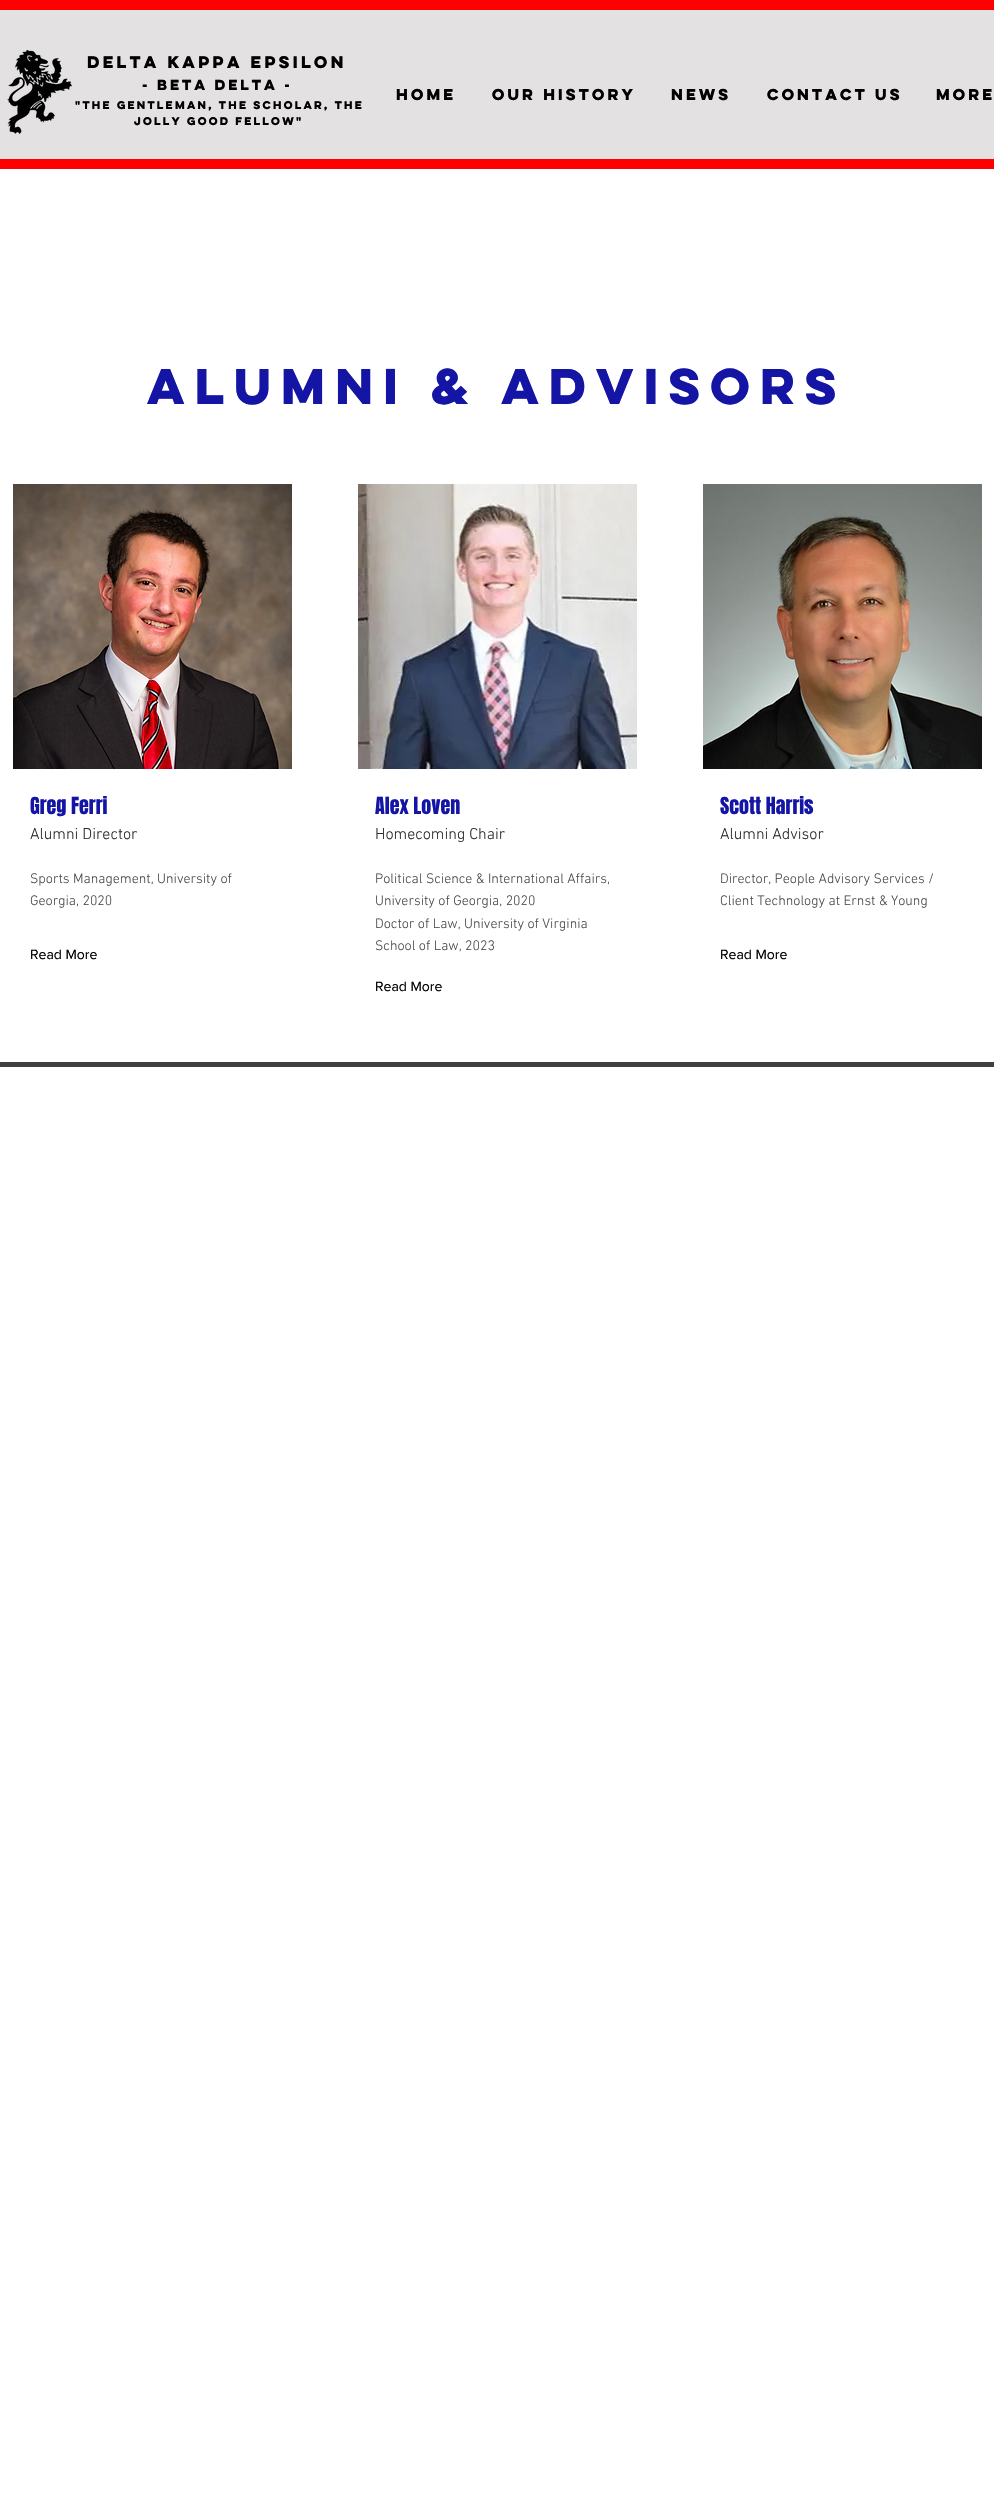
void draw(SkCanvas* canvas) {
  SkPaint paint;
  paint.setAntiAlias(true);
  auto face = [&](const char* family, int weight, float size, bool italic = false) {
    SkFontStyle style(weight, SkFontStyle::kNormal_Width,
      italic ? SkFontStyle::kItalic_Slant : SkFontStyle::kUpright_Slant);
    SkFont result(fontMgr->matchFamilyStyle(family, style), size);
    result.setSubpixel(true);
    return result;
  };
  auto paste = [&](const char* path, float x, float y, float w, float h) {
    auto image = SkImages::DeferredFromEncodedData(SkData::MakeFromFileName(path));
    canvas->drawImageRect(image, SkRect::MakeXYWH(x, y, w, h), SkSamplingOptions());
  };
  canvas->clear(0xffffffff);
  {
    const struct { float x, y, w, h; SkColor color; } items[] = {
      {0, 10, 994, 149, 0xffe3e1e1},
      {0, 0, 994, 10, 0xffff0000},
      {0, 159, 994, 10, 0xffff0000},
    };
    for (auto [x, y, w, h, color] : items) {
      paint.setColor(color);
      canvas->drawRect(SkRect::MakeXYWH(x, y, w, h), paint);
    }
  }
  paste("img/1.png", 7, 50, 65, 84);
  paste("img/2.png", 13, 484, 279, 285);
  paste("img/3.png", 358, 484, 279, 285);
  paste("img/4.png", 703, 484, 279, 285);
  paint.setColor(0xff404040);
  canvas->drawRect(SkRect::MakeXYWH(0, 1062, 994, 5), paint);
  auto f0 = face("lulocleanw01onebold", 700, 15);
  paint.setColor(0xff000000);
  canvas->drawString("Delta Kappa Epsilon", 87, 68, f0, paint);
  auto f1 = face("lulocleanw01onebold", 700, 13);
  canvas->drawString("- Beta Delta -", 142, 90, f1, paint);
  auto f2 = face("lulocleanw01onebold", 700, 14);
  {
    const struct { const char* s; float x, y; } items[] = {
      {"Home", 396, 100},
      {"Our History", 492, 100},
      {"News", 671, 100},
      {"Contact Us", 767, 100},
      {"More", 936, 100},
    };
    for (auto [s, x, y] : items) {
      canvas->drawString(s, x, y, f2, paint);
    }
  }
  auto f3 = face("lulocleanw01onebold", 700, 10);
  canvas->drawString("\"The Gentleman, The Scholar, The", 75, 109, f3, paint);
  canvas->drawString("Jolly Good Fellow\"", 134, 125, f3, paint);
  auto f4 = face("lulocleanw01onebold", 700, 45);
  paint.setColor(0xff1414a5);
  canvas->drawString("Alumni & Advisors", 147, 404, f4, paint);
  auto f5 = face("Anton", 400, 20);
  canvas->drawString("Greg Ferri", 30, 814, f5, paint);
  auto f6 = face("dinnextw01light", 300, 16);
  paint.setColor(0xff2c2c2c);
  canvas->drawString("Alumni Director", 30, 839, f6, paint);
  auto f7 = face("dinnextw01light", 300, 14);
  paint.setColor(0xff4d4b4b);
  canvas->drawString("Sports Management, University of", 30, 883, f7, paint);
  canvas->drawString("Georgia, 2020", 30, 905, f7, paint);
  auto f8 = face("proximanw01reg", 400, 14);
  paint.setColor(0xff000000);
  canvas->drawString("Read More", 30, 959, f8, paint);
  paint.setColor(0xff1414a5);
  canvas->drawString("Alex Loven", 375, 814, f5, paint);
  paint.setColor(0xff2c2c2c);
  canvas->drawString("Homecoming Chair", 375, 839, f6, paint);
  paint.setColor(0xff4d4b4b);
  {
    const struct { const char* s; float x, y; } items[] = {
      {"Political Science & International Affairs,", 375, 883},
      {"University of Georgia, 2020", 375, 905},
      {"Doctor of Law, University of Virginia", 375, 928},
      {"School of Law, 2023", 375, 950},
    };
    for (auto [s, x, y] : items) {
      canvas->drawString(s, x, y, f7, paint);
    }
  }
  paint.setColor(0xff000000);
  canvas->drawString("Read More", 375, 991, f8, paint);
  paint.setColor(0xff1414a5);
  canvas->drawString("Scott Harris", 720, 814, f5, paint);
  paint.setColor(0xff2c2c2c);
  canvas->drawString("Alumni Advisor", 720, 839, f6, paint);
  paint.setColor(0xff4d4b4b);
  canvas->drawString("Director, People Advisory Services /", 720, 883, f7, paint);
  canvas->drawString("Client Technology at Ernst & Young", 720, 905, f7, paint);
  paint.setColor(0xff000000);
  canvas->drawString("Read More", 720, 959, f8, paint);
}
